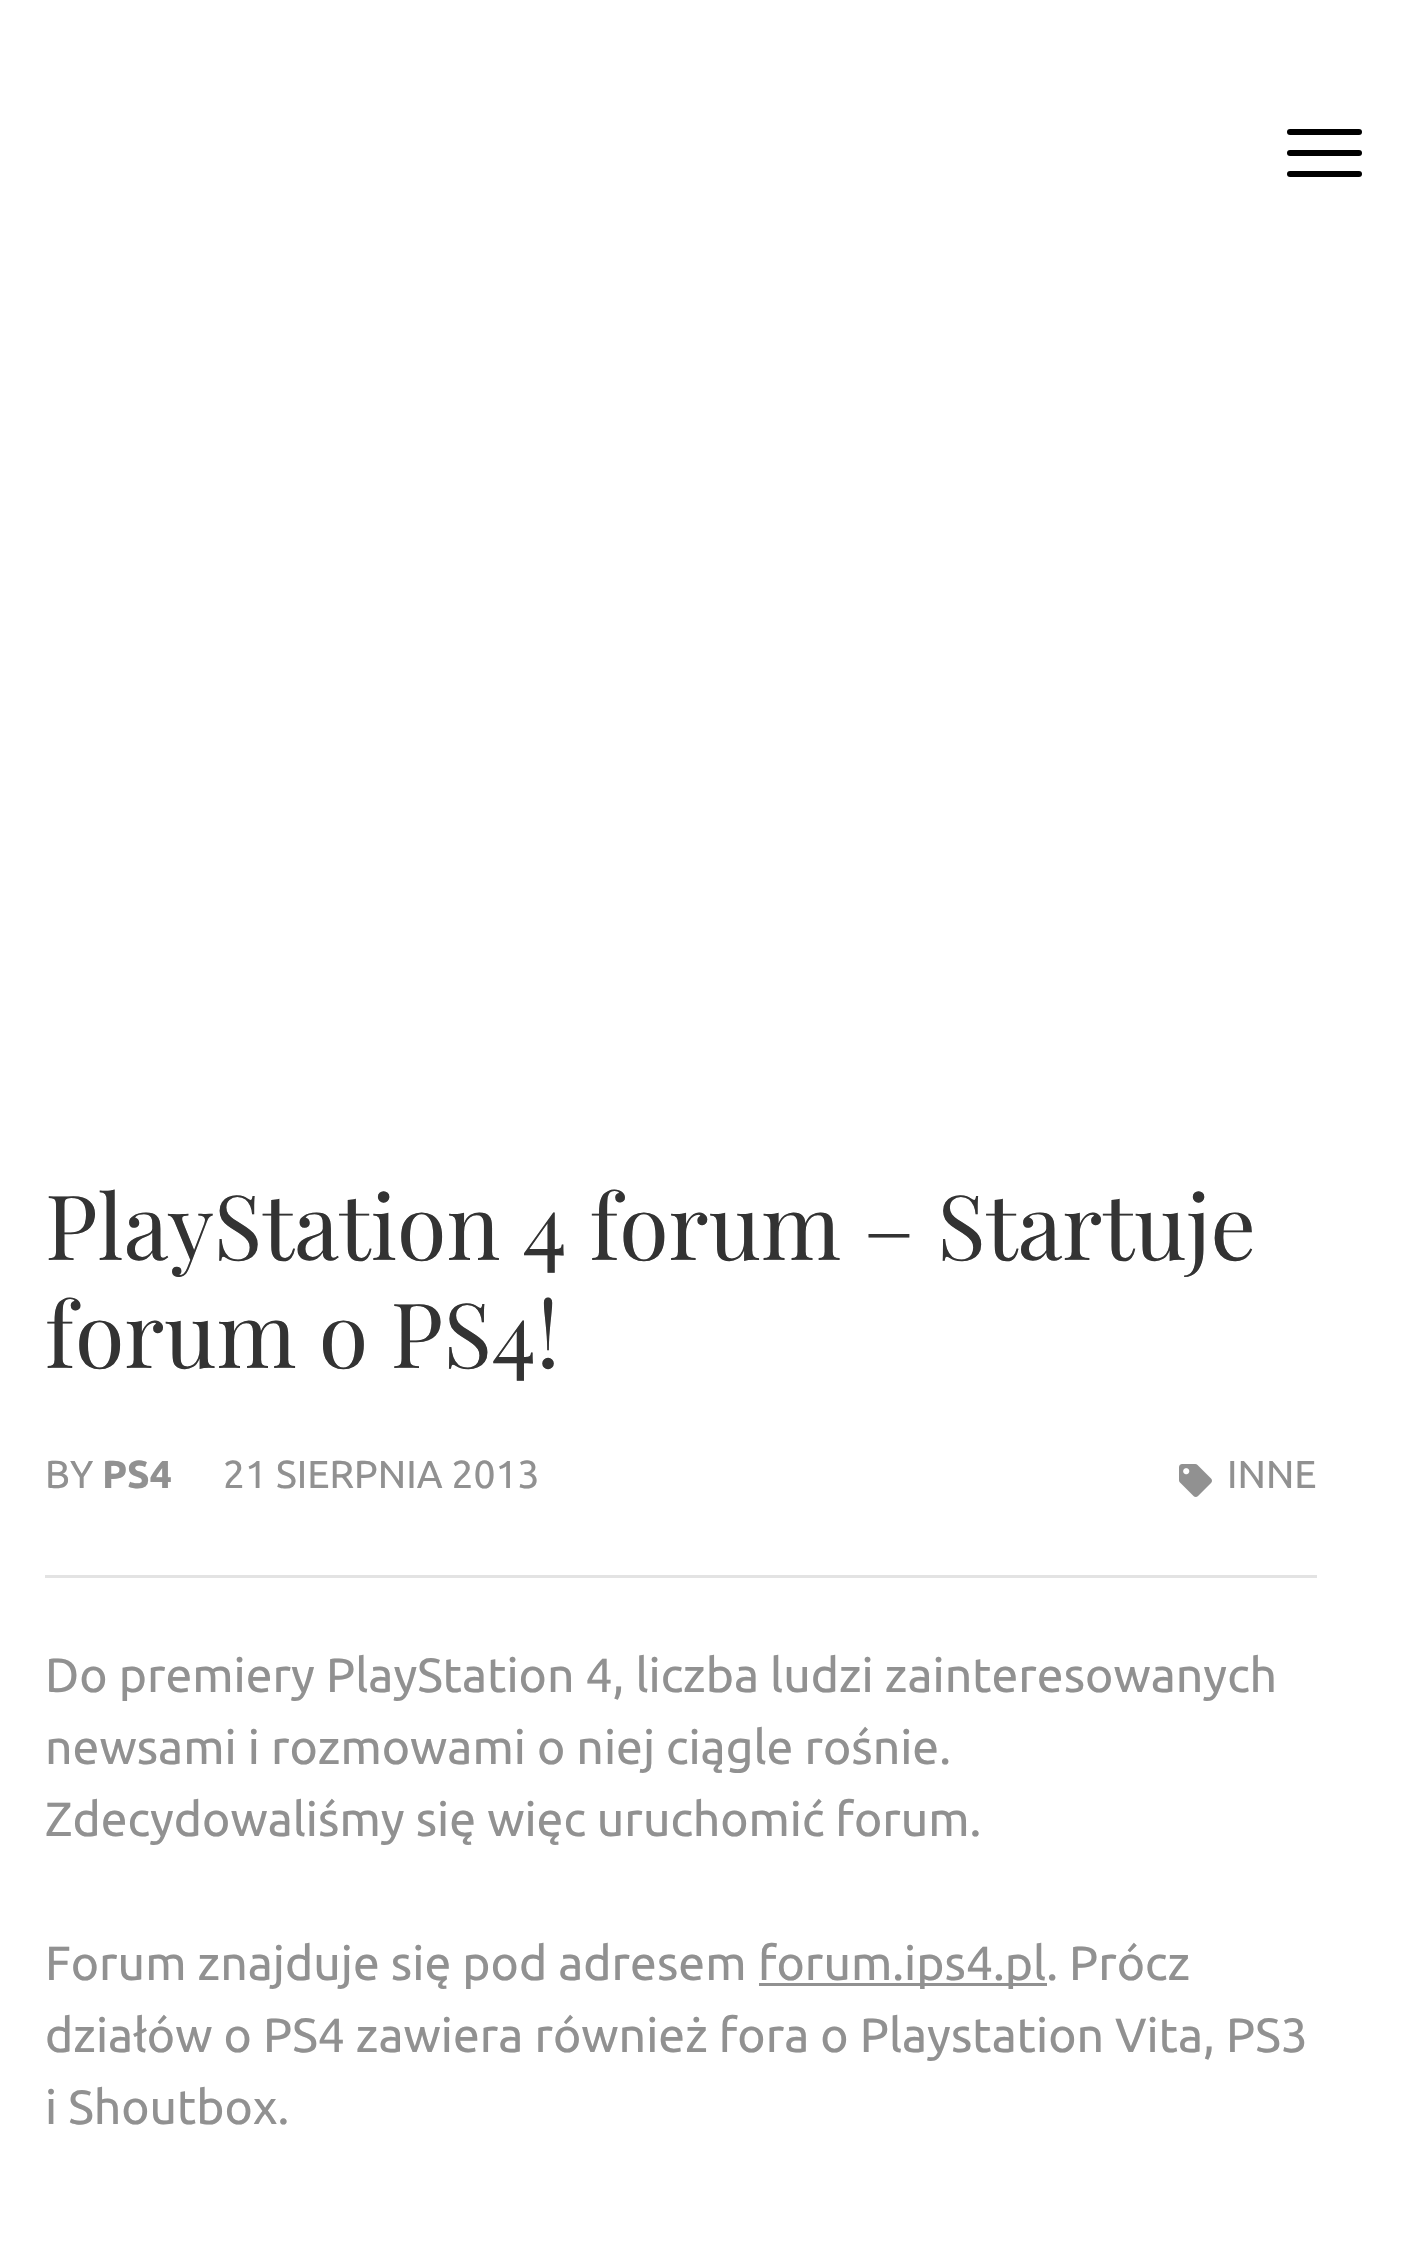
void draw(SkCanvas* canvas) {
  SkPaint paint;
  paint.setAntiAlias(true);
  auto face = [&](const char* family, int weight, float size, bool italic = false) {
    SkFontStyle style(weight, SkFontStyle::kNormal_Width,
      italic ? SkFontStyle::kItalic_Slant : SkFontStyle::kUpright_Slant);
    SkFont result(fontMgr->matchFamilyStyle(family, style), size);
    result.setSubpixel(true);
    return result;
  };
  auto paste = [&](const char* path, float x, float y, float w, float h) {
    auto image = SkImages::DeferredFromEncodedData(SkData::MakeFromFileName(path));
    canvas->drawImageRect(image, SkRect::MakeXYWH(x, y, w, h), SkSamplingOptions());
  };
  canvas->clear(0xffffffff);
  paint.setColor(0xff000000);
  canvas->drawRoundRect(SkRect::MakeXYWH(1287, 129, 75, 6), 3, 3, paint);
  canvas->drawRoundRect(SkRect::MakeXYWH(1287, 150, 75, 6), 3, 3, paint);
  canvas->drawRoundRect(SkRect::MakeXYWH(1287, 171, 75, 6), 3, 3, paint);
  paint.setColor(0xffe3e3e3);
  canvas->drawRect(SkRect::MakeXYWH(45, 1575, 1272, 3), paint);
  paste("img/1.png", 1179, 1464, 33, 33);
  paint.setColor(0xff919191);
  canvas->drawRect(SkRect::MakeXYWH(759, 1983, 288, 3), paint);
  auto f0 = face("Playfair Display", 400, 90);
  paint.setColor(0xff333333);
  canvas->drawString("PlayStation 4 forum – Startuje", 45, 1260, f0, paint);
  canvas->drawString("forum o PS4!", 45, 1368, f0, paint);
  auto f1 = face("Ubuntu", 400, 39);
  paint.setColor(0xff919191);
  canvas->drawString("BY", 45, 1488, f1, paint);
  auto f2 = face("Ubuntu", 700, 39);
  canvas->drawString("PS4", 102, 1488, f2, paint);
  canvas->drawString("21 SIERPNIA 2013", 223, 1488, f1, paint);
  canvas->drawString("INNE", 1227, 1488, f1, paint);
  auto f3 = face("Ubuntu", 400, 48);
  {
    const struct { const char* s; float x, y; } items[] = {
      {"Do premiery PlayStation 4, liczba ludzi zainteresowanych", 45, 1692},
      {"newsami i rozmowami o niej ciągle rośnie.", 45, 1764},
      {"Zdecydowaliśmy się więc uruchomić forum.", 45, 1836},
      {"Forum znajduje się pod adresem", 45, 1980},
      {"forum.ips4.pl. Prócz", 758, 1980},
      {"działów o PS4 zawiera również fora o Playstation Vita, PS3", 45, 2052},
      {"i Shoutbox.", 45, 2124},
    };
    for (auto [s, x, y] : items) {
      canvas->drawString(s, x, y, f3, paint);
    }
  }
}
